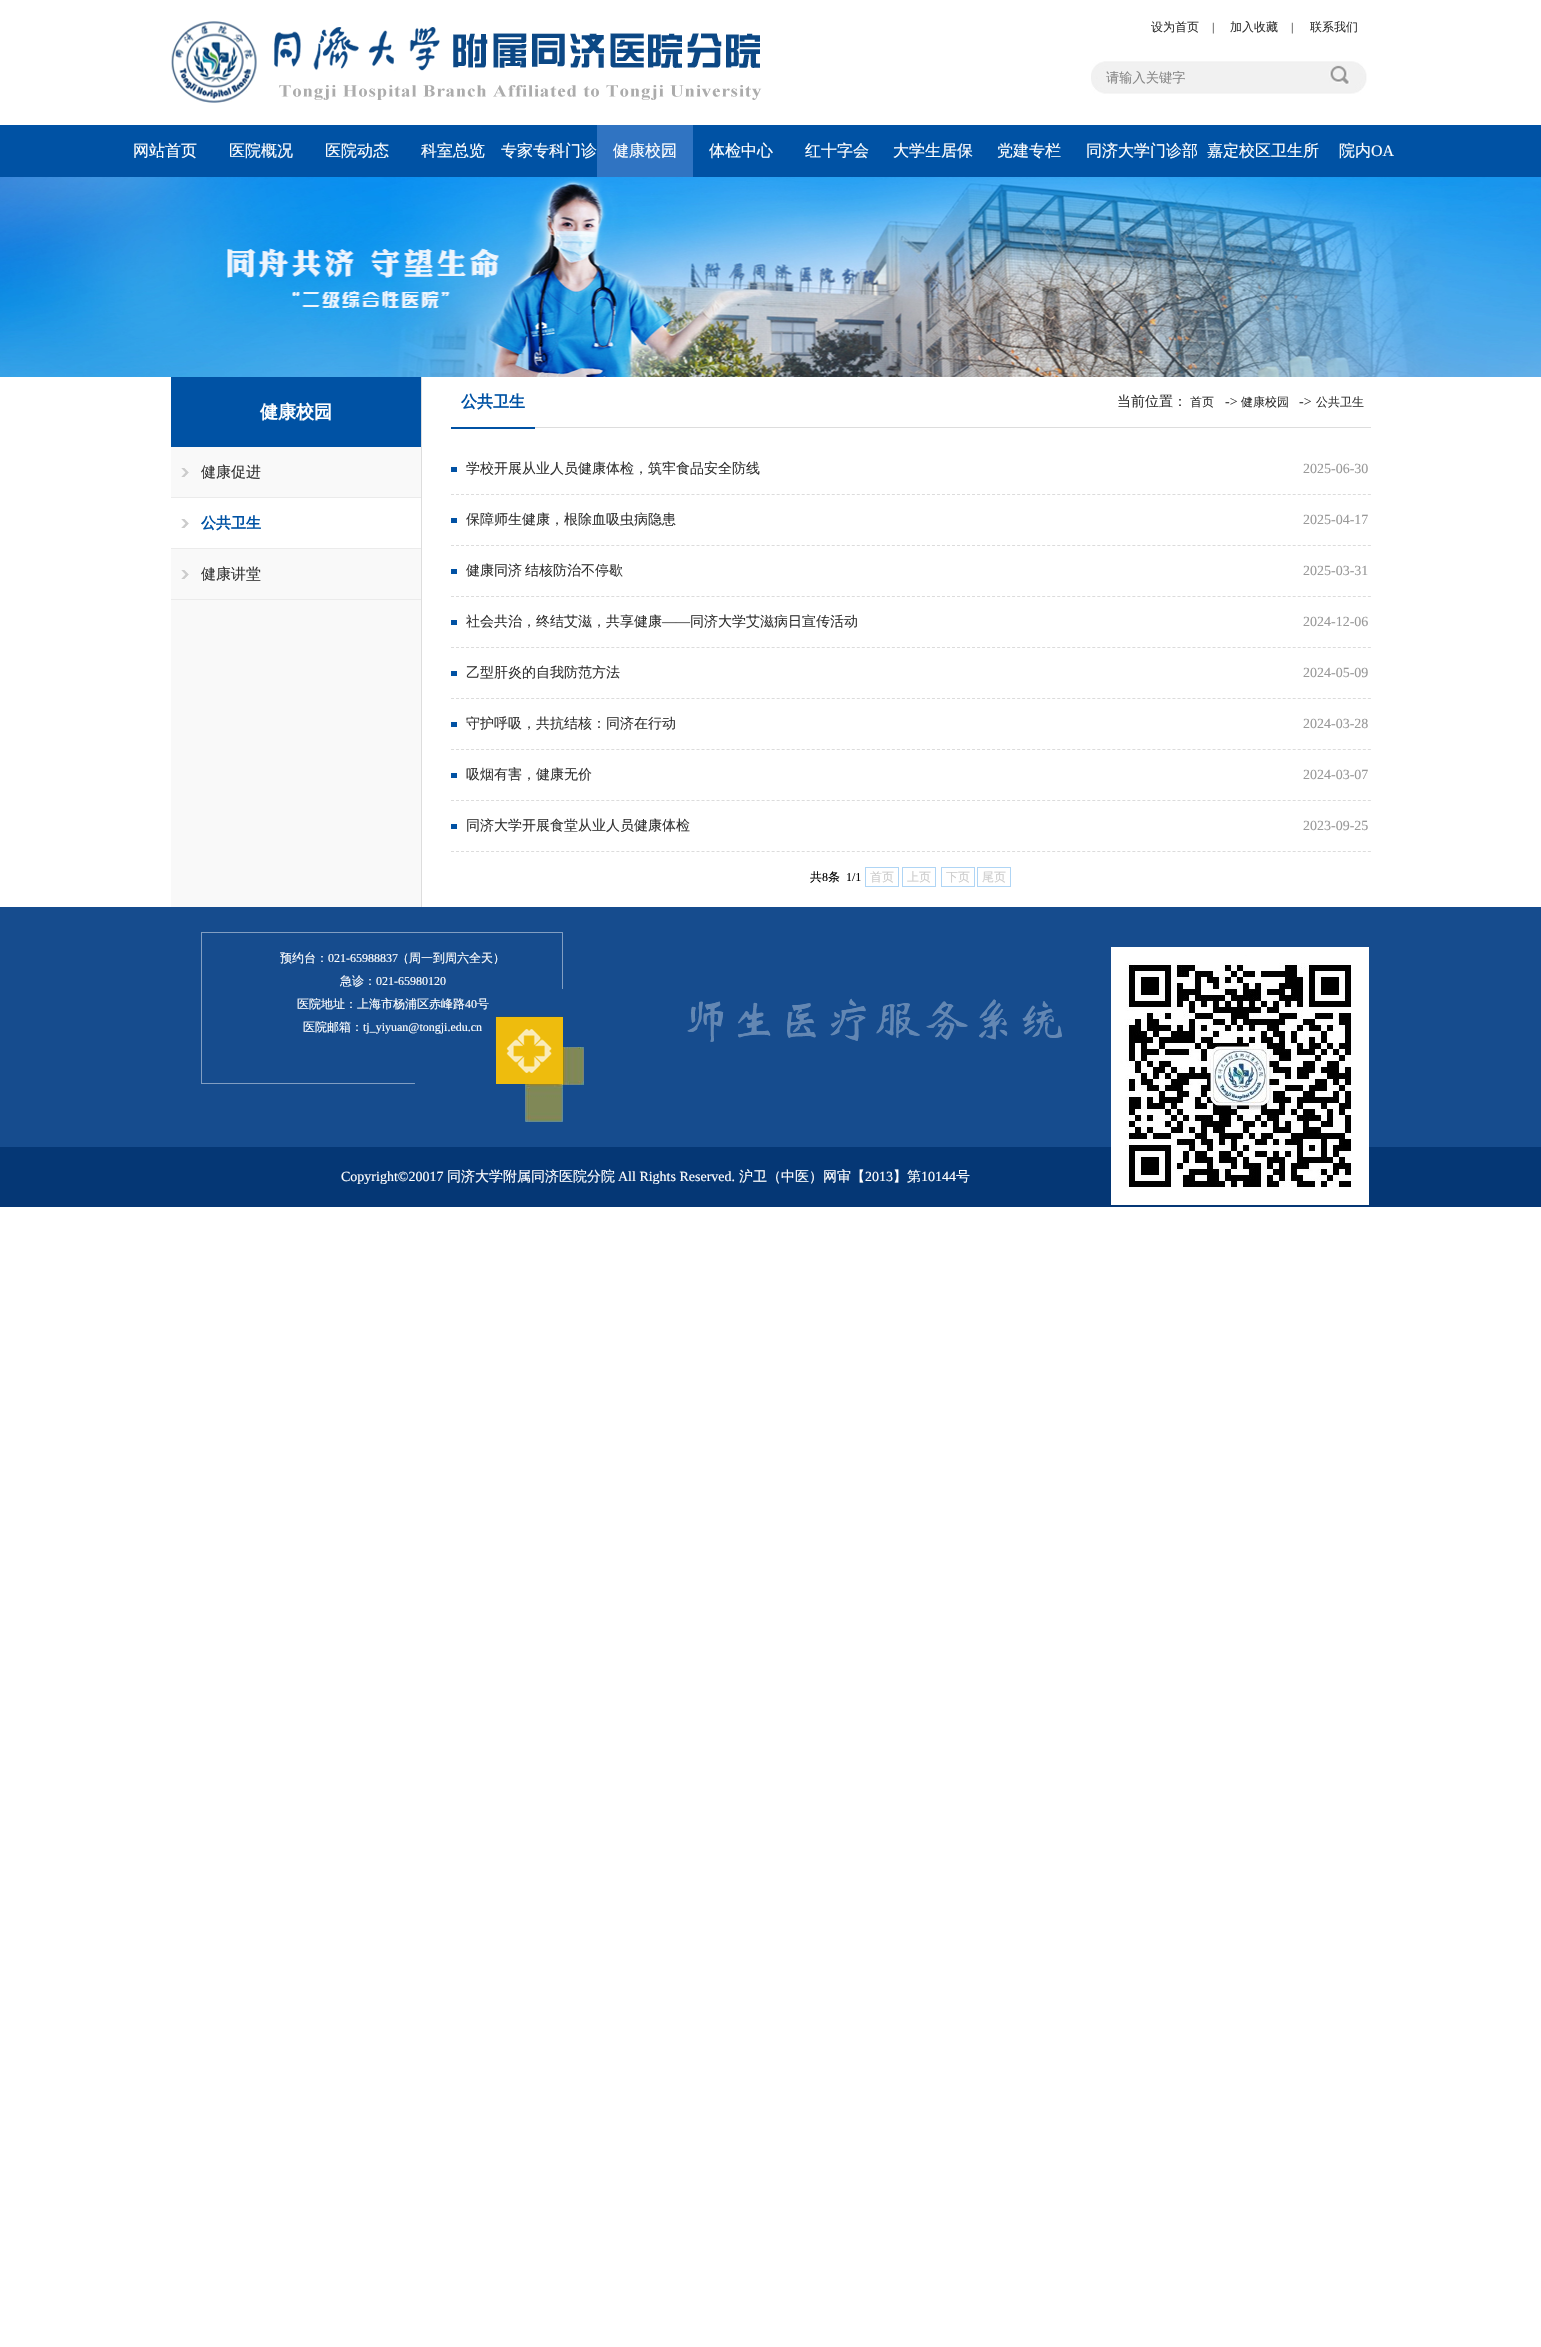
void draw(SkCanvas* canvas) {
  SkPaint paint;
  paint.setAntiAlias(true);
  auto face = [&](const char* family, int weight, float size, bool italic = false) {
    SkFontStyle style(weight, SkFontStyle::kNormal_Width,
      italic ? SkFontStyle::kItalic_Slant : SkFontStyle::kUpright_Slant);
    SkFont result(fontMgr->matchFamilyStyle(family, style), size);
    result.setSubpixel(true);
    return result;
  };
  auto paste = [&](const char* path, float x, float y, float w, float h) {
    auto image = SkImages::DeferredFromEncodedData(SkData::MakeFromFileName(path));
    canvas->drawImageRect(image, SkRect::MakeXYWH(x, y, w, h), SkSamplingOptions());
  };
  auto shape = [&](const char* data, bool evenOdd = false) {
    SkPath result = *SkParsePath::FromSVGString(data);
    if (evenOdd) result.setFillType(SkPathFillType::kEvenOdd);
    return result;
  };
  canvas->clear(0xffffffff);
  paste("img/1.png", 171, 21, 591, 82);
  paste("img/2.png", 1091, 61, 276, 33);
  paste("img/3.png", 1329, 65, 21, 20);
  paint.setColor(0xff0052a4);
  canvas->drawRect(SkRect::MakeXYWH(0, 125, 1541, 52), paint);
  paint.setColor(0xff3074c2);
  canvas->drawRect(SkRect::MakeXYWH(597, 125, 96, 52), paint);
  paste("img/4.png", 0, 177, 1541, 200);
  paint.setColor(0xfff9f9f9);
  canvas->drawRect(SkRect::MakeXYWH(171, 447, 250, 460), paint);
  paint.setColor(0xff0052a4);
  canvas->drawRect(SkRect::MakeXYWH(171, 377, 250, 70), paint);
  paste("img/5.png", 181, 468, 8, 9);
  paint.setColor(0xffebebeb);
  canvas->drawRect(SkRect::MakeXYWH(171, 497, 250, 1), paint);
  paint.setColor(0xffffffff);
  canvas->drawRect(SkRect::MakeXYWH(171, 498, 250, 50), paint);
  paste("img/6.png", 181, 519, 8, 9);
  paint.setColor(0xffebebeb);
  canvas->drawRect(SkRect::MakeXYWH(171, 548, 250, 1), paint);
  paste("img/5.png", 181, 570, 8, 9);
  {
    const struct { float x, y, w, h; SkColor color; } items[] = {
      {171, 599, 250, 1, 0xffebebeb},
      {421, 377, 1, 530, 0xffdddddd},
      {535, 427, 836, 1, 0xffdddddd},
      {451, 427, 84, 2, 0xff0052a4},
      {451, 467, 6, 5, 0xff0152a4},
    };
    for (auto [x, y, w, h, color] : items) {
      paint.setColor(color);
      canvas->drawRect(SkRect::MakeXYWH(x, y, w, h), paint);
    }
  }
  paint.setStroke(true);
  paint.setStrokeWidth(1);
  paint.setColor(0xffdcdcdc);
  paint.setPathEffect(SkDashPathEffect::Make({{3, 2.01f}}, 0));
  canvas->drawPath(shape("M451 494.5H1371"), paint);
  paint.setPathEffect(nullptr);
  paint.setStroke(false);
  paint.setColor(0xff0152a4);
  canvas->drawRect(SkRect::MakeXYWH(451, 518, 6, 5), paint);
  paint.setStroke(true);
  paint.setColor(0xffdcdcdc);
  paint.setPathEffect(SkDashPathEffect::Make({{3, 2.01f}}, 0));
  canvas->drawPath(shape("M451 545.5H1371"), paint);
  paint.setPathEffect(nullptr);
  paint.setStroke(false);
  paint.setColor(0xff0152a4);
  canvas->drawRect(SkRect::MakeXYWH(451, 569, 6, 5), paint);
  paint.setStroke(true);
  paint.setColor(0xffdcdcdc);
  paint.setPathEffect(SkDashPathEffect::Make({{3, 2.01f}}, 0));
  canvas->drawPath(shape("M451 596.5H1371"), paint);
  paint.setPathEffect(nullptr);
  paint.setStroke(false);
  paint.setColor(0xff0152a4);
  canvas->drawRect(SkRect::MakeXYWH(451, 620, 6, 5), paint);
  paint.setStroke(true);
  paint.setColor(0xffdcdcdc);
  paint.setPathEffect(SkDashPathEffect::Make({{3, 2.01f}}, 0));
  canvas->drawPath(shape("M451 647.5H1371"), paint);
  paint.setPathEffect(nullptr);
  paint.setStroke(false);
  paint.setColor(0xff0152a4);
  canvas->drawRect(SkRect::MakeXYWH(451, 671, 6, 5), paint);
  paint.setStroke(true);
  paint.setColor(0xffdcdcdc);
  paint.setPathEffect(SkDashPathEffect::Make({{3, 2.01f}}, 0));
  canvas->drawPath(shape("M451 698.5H1371"), paint);
  paint.setPathEffect(nullptr);
  paint.setStroke(false);
  paint.setColor(0xff0152a4);
  canvas->drawRect(SkRect::MakeXYWH(451, 722, 6, 5), paint);
  paint.setStroke(true);
  paint.setColor(0xffdcdcdc);
  paint.setPathEffect(SkDashPathEffect::Make({{3, 2.01f}}, 0));
  canvas->drawPath(shape("M451 749.5H1371"), paint);
  paint.setPathEffect(nullptr);
  paint.setStroke(false);
  paint.setColor(0xff0152a4);
  canvas->drawRect(SkRect::MakeXYWH(451, 773, 6, 5), paint);
  paint.setStroke(true);
  paint.setColor(0xffdcdcdc);
  paint.setPathEffect(SkDashPathEffect::Make({{3, 2.01f}}, 0));
  canvas->drawPath(shape("M451 800.5H1371"), paint);
  paint.setPathEffect(nullptr);
  paint.setStroke(false);
  paint.setColor(0xff0152a4);
  canvas->drawRect(SkRect::MakeXYWH(451, 824, 6, 5), paint);
  paint.setStroke(true);
  paint.setColor(0xffdcdcdc);
  paint.setPathEffect(SkDashPathEffect::Make({{3, 2.01f}}, 0));
  canvas->drawPath(shape("M451 851.5H1371"), paint);
  paint.setPathEffect(nullptr);
  paint.setColor(0xffafd5f5);
  canvas->drawRect(SkRect::MakeXYWH(865.5f, 867.5f, 33, 19), paint);
  canvas->drawRect(SkRect::MakeXYWH(902.5f, 867.5f, 33, 19), paint);
  canvas->drawRect(SkRect::MakeXYWH(941.5f, 867.5f, 33, 19), paint);
  canvas->drawRect(SkRect::MakeXYWH(977.5f, 867.5f, 33, 19), paint);
  paint.setStroke(false);
  paint.setColor(0xff164c8e);
  canvas->drawRect(SkRect::MakeXYWH(0, 907, 1541, 240), paint);
  paste("img/7.png", 201, 932, 383, 190);
  paste("img/8.png", 687, 998, 375, 44);
  paint.setColor(0xff053775);
  canvas->drawRect(SkRect::MakeXYWH(0, 1147, 1541, 60), paint);
  paste("img/9.png", 1111, 947, 258, 258);
  auto f0 = face("WenQuanYi Zen Hei", 500, 12);
  paint.setColor(0xff333333);
  canvas->drawString("设为首页", 1151, 31, f0, paint);
  auto f1 = face("Liberation Serif", 400, 12);
  canvas->drawString("|", 1212, 31, f1, paint);
  canvas->drawString("加入收藏", 1230, 31, f0, paint);
  canvas->drawString("|", 1291, 31, f1, paint);
  canvas->drawString("联系我们", 1310, 31, f0, paint);
  auto f2 = face("WenQuanYi Zen Hei", 500, 13.25f);
  paint.setColor(0xff888888);
  canvas->drawString("请输入关键字", 1106, 82, f2, paint);
  auto f3 = face("WenQuanYi Zen Hei", 500, 16);
  paint.setColor(0xffffffff);
  {
    const struct { const char* s; float x, y; } items[] = {
      {"网站首页", 133, 156},
      {"医院概况", 229, 156},
      {"医院动态", 325, 156},
      {"科室总览", 421, 156},
      {"专家专科门诊", 501, 156},
      {"健康校园", 613, 156},
      {"体检中心", 709, 156},
      {"红十字会", 805, 156},
      {"大学生居保", 893, 156},
      {"党建专栏", 997, 156},
      {"同济大学门诊部", 1086, 156},
      {"嘉定校区卫生所", 1207, 156},
      {"院内", 1339, 156},
    };
    for (auto [s, x, y] : items) {
      canvas->drawString(s, x, y, f3, paint);
    }
  }
  auto f4 = face("Liberation Serif", 400, 16);
  canvas->drawString("OA", 1371, 156, f4, paint);
  auto f5 = face("WenQuanYi Zen Hei", 700, 18);
  canvas->drawString("健康校园", 260, 418, f5, paint);
  auto f6 = face("WenQuanYi Zen Hei", 500, 15);
  paint.setColor(0xff333333);
  canvas->drawString("健康促进", 201, 477, f6, paint);
  auto f7 = face("WenQuanYi Zen Hei", 700, 15);
  paint.setColor(0xff0052a4);
  canvas->drawString("公共卫生", 201, 528, f7, paint);
  paint.setColor(0xff333333);
  canvas->drawString("健康讲堂", 201, 579, f6, paint);
  auto f8 = face("WenQuanYi Zen Hei", 700, 16);
  paint.setColor(0xff0052a4);
  canvas->drawString("公共卫生", 461, 407, f8, paint);
  auto f9 = face("WenQuanYi Zen Hei", 500, 14);
  paint.setColor(0xff333333);
  canvas->drawString("当前位置：", 1117, 406, f9, paint);
  canvas->drawString("首页", 1190, 406, f0, paint);
  auto f10 = face("Liberation Serif", 400, 14);
  canvas->drawString("->", 1225, 406, f10, paint);
  canvas->drawString("健康校园", 1241, 406, f0, paint);
  canvas->drawString("->", 1299, 406, f10, paint);
  canvas->drawString("公共卫生", 1316, 406, f0, paint);
  canvas->drawString("学校开展从业人员健康体检，筑牢食品安全防线", 466, 473, f9, paint);
  paint.setColor(0xff999999);
  canvas->drawString("2025-06-30", 1303, 473, f10, paint);
  paint.setColor(0xff333333);
  canvas->drawString("保障师生健康，根除血吸虫病隐患", 466, 524, f9, paint);
  paint.setColor(0xff999999);
  canvas->drawString("2025-04-17", 1303, 524, f10, paint);
  paint.setColor(0xff333333);
  canvas->drawString("健康同济", 466, 575, f9, paint);
  canvas->drawString("结核防治不停歇", 525, 575, f9, paint);
  paint.setColor(0xff999999);
  canvas->drawString("2025-03-31", 1303, 575, f10, paint);
  paint.setColor(0xff333333);
  canvas->drawString("社会共治，终结艾滋，共享健康", 466, 626, f9, paint);
  canvas->drawString("——", 662, 626, f10, paint);
  canvas->drawString("同济大学艾滋病日宣传活动", 690, 626, f9, paint);
  paint.setColor(0xff999999);
  canvas->drawString("2024-12-06", 1303, 626, f10, paint);
  paint.setColor(0xff333333);
  canvas->drawString("乙型肝炎的自我防范方法", 466, 677, f9, paint);
  paint.setColor(0xff999999);
  canvas->drawString("2024-05-09", 1303, 677, f10, paint);
  paint.setColor(0xff333333);
  canvas->drawString("守护呼吸，共抗结核：同济在行动", 466, 728, f9, paint);
  paint.setColor(0xff999999);
  canvas->drawString("2024-03-28", 1303, 728, f10, paint);
  paint.setColor(0xff333333);
  canvas->drawString("吸烟有害，健康无价", 466, 779, f9, paint);
  paint.setColor(0xff999999);
  canvas->drawString("2024-03-07", 1303, 779, f10, paint);
  paint.setColor(0xff333333);
  canvas->drawString("同济大学开展食堂从业人员健康体检", 466, 830, f9, paint);
  paint.setColor(0xff999999);
  canvas->drawString("2023-09-25", 1303, 830, f10, paint);
  paint.setColor(0xff000000);
  canvas->drawString("共", 810, 881, f0, paint);
  canvas->drawString("8", 822, 881, f1, paint);
  canvas->drawString("条", 828, 881, f0, paint);
  canvas->drawString("1/1", 846, 881, f1, paint);
  paint.setColor(0xffcccccc);
  {
    const struct { const char* s; float x, y; } items[] = {
      {"首页", 870, 881},
      {"上页", 907, 881},
      {"下页", 946, 881},
      {"尾页", 982, 881},
    };
    for (auto [s, x, y] : items) {
      canvas->drawString(s, x, y, f0, paint);
    }
  }
  paint.setColor(0xffffffff);
  canvas->drawString("预约台：", 280, 962, f0, paint);
  canvas->drawString("021-65988837", 328, 962, f1, paint);
  canvas->drawString("（周一到周六全天）", 397, 962, f0, paint);
  canvas->drawString("急诊：", 340, 985, f0, paint);
  canvas->drawString("021-65980120", 376, 985, f1, paint);
  canvas->drawString("医院地址：上海市杨浦区赤峰路", 297, 1008, f0, paint);
  canvas->drawString("40", 465, 1008, f1, paint);
  canvas->drawString("号", 477, 1008, f0, paint);
  canvas->drawString("医院邮箱：", 303, 1031, f0, paint);
  canvas->drawString("tj_yiyuan@tongji.edu.cn", 363, 1031, f1, paint);
  canvas->drawString("Copyright©20017", 341, 1181, f10, paint);
  canvas->drawString("同济大学附属同济医院分院", 447, 1181, f9, paint);
  canvas->drawString("All Rights Reserved.", 618, 1181, f10, paint);
  canvas->drawString("沪卫（中医）网审【", 739, 1181, f9, paint);
  canvas->drawString("2013", 865, 1181, f10, paint);
  canvas->drawString("】第", 893, 1181, f9, paint);
  canvas->drawString("10144", 921, 1181, f10, paint);
  canvas->drawString("号", 956, 1181, f9, paint);
}
